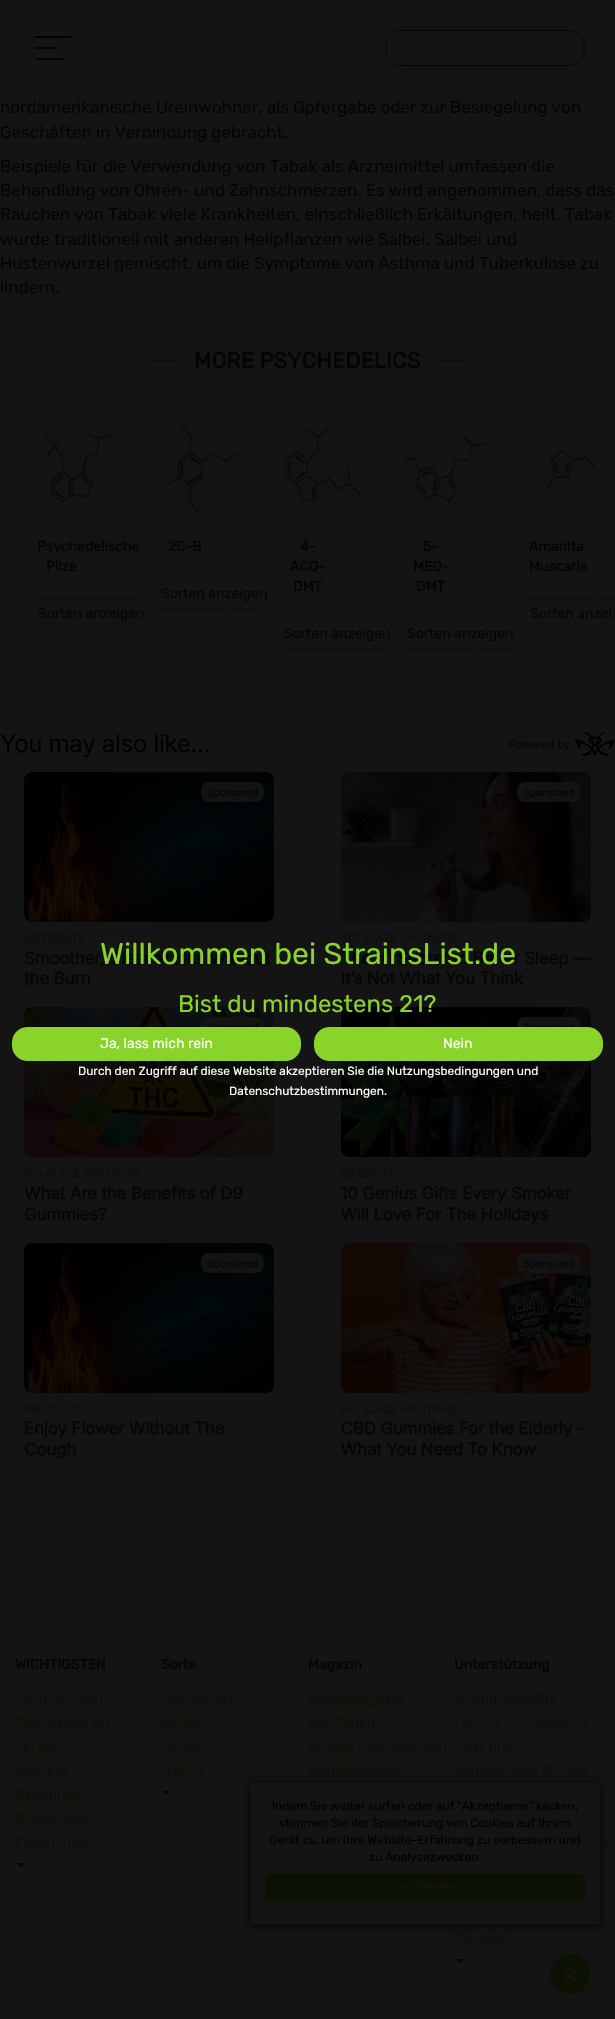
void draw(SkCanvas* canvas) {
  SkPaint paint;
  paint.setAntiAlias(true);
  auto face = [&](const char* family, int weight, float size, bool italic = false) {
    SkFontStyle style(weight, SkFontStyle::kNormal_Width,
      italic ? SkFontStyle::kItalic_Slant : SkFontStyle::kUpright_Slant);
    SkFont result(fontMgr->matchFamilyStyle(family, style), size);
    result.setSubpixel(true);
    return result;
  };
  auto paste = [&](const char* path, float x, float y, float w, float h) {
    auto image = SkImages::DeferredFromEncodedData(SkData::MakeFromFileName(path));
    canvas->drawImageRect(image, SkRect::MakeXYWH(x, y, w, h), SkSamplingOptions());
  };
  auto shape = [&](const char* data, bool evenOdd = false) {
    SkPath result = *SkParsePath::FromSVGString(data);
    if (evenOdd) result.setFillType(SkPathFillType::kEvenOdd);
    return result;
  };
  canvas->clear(0xff141414);
  {
    const struct { float x, y, w, h; SkColor color; } items[] = {
      {35, 36, 36, 2, 0xff000000},
      {35, 47, 22, 2, 0xff030407},
      {35, 58, 29, 2, 0xff030407},
    };
    for (auto [x, y, w, h, color] : items) {
      paint.setColor(color);
      canvas->drawRect(SkRect::MakeXYWH(x, y, w, h), paint);
    }
  }
  paint.setStroke(true);
  paint.setStrokeWidth(1);
  paint.setColor(0xff040404);
  canvas->drawRoundRect(SkRect::MakeXYWH(385.5f, 30.5f, 199, 35), 17.5f, 17.5f, paint);
  paint.setStroke(false);
  paint.setColor(0xff0b1103);
  canvas->drawRect(SkRect::MakeXYWH(149, 360, 30, 2), paint);
  canvas->drawRect(SkRect::MakeXYWH(436, 360, 30, 2), paint);
  paste("img/1.png", 45, 417, 67, 100);
  paint.setStroke(true);
  paint.setColor(0xff101010);
  canvas->drawRoundRect(SkRect::MakeXYWH(25.5f, 597.5f, 132, 33), 14.5f, 14.5f, paint);
  paste("img/6.png", 0, 732, 615, 727);
  paint.setStroke(false);
  paint.setColor(0xff89d32a);
  canvas->drawRoundRect(SkRect::MakeXYWH(12.5f, 1027.5f, 288, 33), 14.5f, 14.5f, paint);
  paint.setStroke(true);
  canvas->drawRoundRect(SkRect::MakeXYWH(12.5f, 1027.5f, 288, 33), 14.5f, 14.5f, paint);
  paint.setStroke(false);
  canvas->drawRoundRect(SkRect::MakeXYWH(314.5f, 1027.5f, 288, 33), 14.5f, 14.5f, paint);
  paint.setStroke(true);
  canvas->drawRoundRect(SkRect::MakeXYWH(314.5f, 1027.5f, 288, 33), 14.5f, 14.5f, paint);
  paint.setStroke(false);
  paint.setColor(0xff030407);
  canvas->drawPath(shape("M17 1863H25L21 1867Z"), paint);
  canvas->drawPath(shape("M163 1791H171L167 1795Z"), paint);
  canvas->drawPath(shape("M456 1959H464L460 1963Z"), paint);
  paint.setColor(0xff000000);
  paint.setMaskFilter(SkMaskFilter::MakeBlur(kNormal_SkBlurStyle, 5));
  canvas->drawRect(SkRect::MakeXYWH(250, 1784, 350, 141), paint);
  paint.setMaskFilter(nullptr);
  paint.setColor(0xff0b1103);
  canvas->drawCircle(570, 1974, 20, paint);
  paste("img/7.png", 564, 1965, 13, 17);
  auto f0 = face("Rubik", 300, 17);
  paint.setColor(0xff030407);
  {
    const struct { const char* s; float x, y; } items[] = {
      {"nordamerikanische Ureinwohner, als Opfergabe oder zur Besiegelung von", 0, 113},
      {"Geschäften in Verbindung gebracht.", 0, 138},
      {"Beispiele für die Verwendung von Tabak als Arzneimittel umfassen die", 0, 172},
      {"Behandlung von Ohren- und Zahnschmerzen. Es wird angenommen, dass das", 0, 196},
      {"Rauchen von Tabak viele Krankheiten, einschließlich Erkältungen, heilt. Tabak", 0, 220},
      {"wurde traditionell mit anderen Heilpflanzen wie Salbei, Salbei und", 0, 245},
      {"Hustenwurzel gemischt, um die Symptome von Asthma und Tuberkulose zu", 0, 269},
      {"lindern.", 0, 293},
    };
    for (auto [s, x, y] : items) {
      canvas->drawString(s, x, y, f0, paint);
    }
  }
  auto f1 = face("Rubik", 700, 22);
  canvas->drawString("MORE PSYCHEDELICS", 194, 368, f1, paint);
  auto f2 = face("Rubik", 700, 14);
  canvas->drawString("Psychedelische", 37, 551, f2, paint);
  canvas->drawString("Pilze", 46, 571, f2, paint);
  auto f3 = face("Rubik", 300, 14);
  canvas->drawString("Sorten anzeigen", 38, 618, f3, paint);
  paint.setStroke(true);
  paint.setStrokeWidth(2);
  paint.setColor(0xff131313);
  canvas->drawRect(SkRect::MakeXYWH(139, 408, 91, 212), paint);
  paste("img/2.png", 166, 417, 72, 100);
  paint.setStroke(false);
  paint.setColor(0xff030407);
  canvas->drawString("2C-B", 168, 551, f2, paint);
  paint.setColor(0xff141414);
  canvas->drawRoundRect(SkRect::MakeXYWH(148.5f, 577.5f, 132, 33), 14.5f, 14.5f, paint);
  paint.setStroke(true);
  paint.setStrokeWidth(1);
  paint.setColor(0xff101010);
  canvas->drawRoundRect(SkRect::MakeXYWH(148.5f, 577.5f, 132, 33), 14.5f, 14.5f, paint);
  paint.setStroke(false);
  paint.setColor(0xff030407);
  canvas->drawString("Sorten anzeigen", 161, 598, f3, paint);
  paint.setStroke(true);
  paint.setStrokeWidth(2);
  paint.setColor(0xff131313);
  canvas->drawRect(SkRect::MakeXYWH(262, 408, 91, 252), paint);
  paste("img/3.png", 284, 417, 77, 100);
  paint.setStroke(false);
  paint.setColor(0xff030407);
  {
    const struct { const char* s; float x, y; } items[] = {
      {"4-", 300, 551},
      {"ACO-", 290, 571},
      {"DMT", 293, 591},
    };
    for (auto [s, x, y] : items) {
      canvas->drawString(s, x, y, f2, paint);
    }
  }
  paint.setStroke(true);
  paint.setStrokeWidth(1);
  paint.setColor(0xff101010);
  canvas->drawRoundRect(SkRect::MakeXYWH(271.5f, 617.5f, 132, 33), 14.5f, 14.5f, paint);
  paint.setStroke(false);
  paint.setColor(0xff030407);
  canvas->drawString("Sorten anzeigen", 284, 638, f3, paint);
  paint.setStroke(true);
  paint.setStrokeWidth(2);
  paint.setColor(0xff131313);
  canvas->drawRect(SkRect::MakeXYWH(385, 408, 91, 252), paint);
  paste("img/4.png", 403, 417, 83, 100);
  paint.setStroke(false);
  paint.setColor(0xff030407);
  {
    const struct { const char* s; float x, y; } items[] = {
      {"5-", 423, 551},
      {"MEO-", 413, 571},
      {"DMT", 416, 591},
    };
    for (auto [s, x, y] : items) {
      canvas->drawString(s, x, y, f2, paint);
    }
  }
  paint.setColor(0xff141414);
  canvas->drawRoundRect(SkRect::MakeXYWH(394.5f, 617.5f, 132, 33), 14.5f, 14.5f, paint);
  paint.setStroke(true);
  paint.setStrokeWidth(1);
  paint.setColor(0xff101010);
  canvas->drawRoundRect(SkRect::MakeXYWH(394.5f, 617.5f, 132, 33), 14.5f, 14.5f, paint);
  paint.setStroke(false);
  paint.setColor(0xff030407);
  canvas->drawString("Sorten anzeigen", 407, 638, f3, paint);
  paint.setStroke(true);
  paint.setStrokeWidth(2);
  paint.setColor(0xff131313);
  canvas->drawRect(SkRect::MakeXYWH(508, 408, 91, 232), paint);
  paste("img/5.png", 544, 417, 56, 100);
  paint.setStroke(false);
  paint.setColor(0xff030407);
  canvas->drawString("Amanita", 529, 551, f2, paint);
  canvas->drawString("Muscaria", 529, 571, f2, paint);
  paint.setColor(0xff141414);
  canvas->drawPath(shape("M532 597H615V631H532C523.5 631 517 624.5 517 616V612C517 603.5 523.5 597 532 597Z"), paint);
  paint.setStroke(true);
  paint.setStrokeWidth(1);
  paint.setColor(0xff101010);
  canvas->drawRoundRect(SkRect::MakeXYWH(517.5f, 597.5f, 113, 33), 14.5f, 14.5f, paint);
  paint.setStroke(false);
  paint.setColor(0xff030407);
  canvas->drawString("Sorten anzei", 530, 618, f3, paint);
  auto f4 = face("Rubik", 300, 30);
  paint.setColor(0xff89d32a);
  canvas->drawString("Willkommen bei StrainsList.de", 100, 964, f4, paint);
  auto f5 = face("Rubik", 300, 24);
  canvas->drawString("Bist du mindestens 21?", 178, 1012, f5, paint);
  paint.setColor(0xffffffff);
  canvas->drawString("Ja, lass mich rein", 100, 1048, f3, paint);
  canvas->drawString("Nein", 443, 1048, f3, paint);
  auto f6 = face("Rubik", 300, 11.9f);
  canvas->drawString("Durch den Zugriff auf diese Website akzeptieren Sie die Nutzungsbedingungen und", 78, 1075, f6, paint);
  canvas->drawString("Datenschutzbestimmungen.", 229, 1095, f6, paint);
  paint.setColor(0xff030407);
  canvas->drawString("WICHTIGSTEN", 15, 1669, f2, paint);
  paint.setColor(0xff0b1103);
  {
    const struct { const char* s; float x, y; } items[] = {
      {"Zimmertypen", 15, 1703},
      {"Chemische Art", 15, 1727},
      {"Terpen", 15, 1751},
      {"Wirkung", 15, 1775},
      {"Behandeln", 15, 1799},
      {"Geschmack", 15, 1823},
      {"Psychedelic", 15, 1847},
    };
    for (auto [s, x, y] : items) {
      canvas->drawString(s, x, y, f3, paint);
    }
  }
  paint.setColor(0xff030407);
  canvas->drawString("Sorte", 161, 1669, f2, paint);
  paint.setColor(0xff0b1103);
  {
    const struct { const char* s; float x, y; } items[] = {
      {"Alle Sorten", 161, 1703},
      {"Indica", 161, 1727},
      {"Sativa", 161, 1751},
      {"Hybrid", 161, 1775},
    };
    for (auto [s, x, y] : items) {
      canvas->drawString(s, x, y, f3, paint);
    }
  }
  paint.setColor(0xff030407);
  canvas->drawString("Magazin", 308, 1669, f2, paint);
  paint.setColor(0xff0b1103);
  {
    const struct { const char* s; float x, y; } items[] = {
      {"Hauptmagazin", 308, 1703},
      {"Handbuch", 308, 1727},
      {"Stamm Bewertungen", 308, 1751},
      {"Medizinisches", 308, 1775},
    };
    for (auto [s, x, y] : items) {
      canvas->drawString(s, x, y, f3, paint);
    }
  }
  paint.setColor(0xff030407);
  canvas->drawString("Unterstützung", 454, 1669, f2, paint);
  paint.setColor(0xff0b1103);
  {
    const struct { const char* s; float x, y; } items[] = {
      {"Häufig gestellte", 454, 1703},
      {"Fragen - Stammliste", 454, 1727},
      {"Über uns", 454, 1751},
      {"Kontaktieren Sie uns", 454, 1775},
      {"n", 598, 1847},
      {"Deutsch", 454, 1943},
    };
    for (auto [s, x, y] : items) {
      canvas->drawString(s, x, y, f3, paint);
    }
  }
  paint.setColor(0xff141414);
  canvas->drawRect(SkRect::MakeXYWH(250, 1783, 350, 141), paint);
  auto f7 = face("Rubik", 300, 12);
  paint.setColor(0xff000000);
  {
    const struct { const char* s; float x, y; } items[] = {
      {"Indem Sie weiter surfen oder auf \"Akzeptieren\" klicken,", 272, 1810},
      {"stimmen Sie der Speicherung von Cookies auf Ihrem", 279, 1827},
      {"Gerät zu, um Ihre Website-Erfahrung zu verbessern und", 269, 1844},
      {"zu Analysezwecken.", 369, 1861},
    };
    for (auto [s, x, y] : items) {
      canvas->drawString(s, x, y, f7, paint);
    }
  }
  paint.setColor(0xff0b1103);
  canvas->drawRoundRect(SkRect::MakeXYWH(265, 1874, 320, 27), 3, 3, paint);
  auto f8 = face("Rubik", 300, 13);
  paint.setColor(0xff141414);
  canvas->drawString("Verstanden!", 388, 1891, f8, paint);
}
